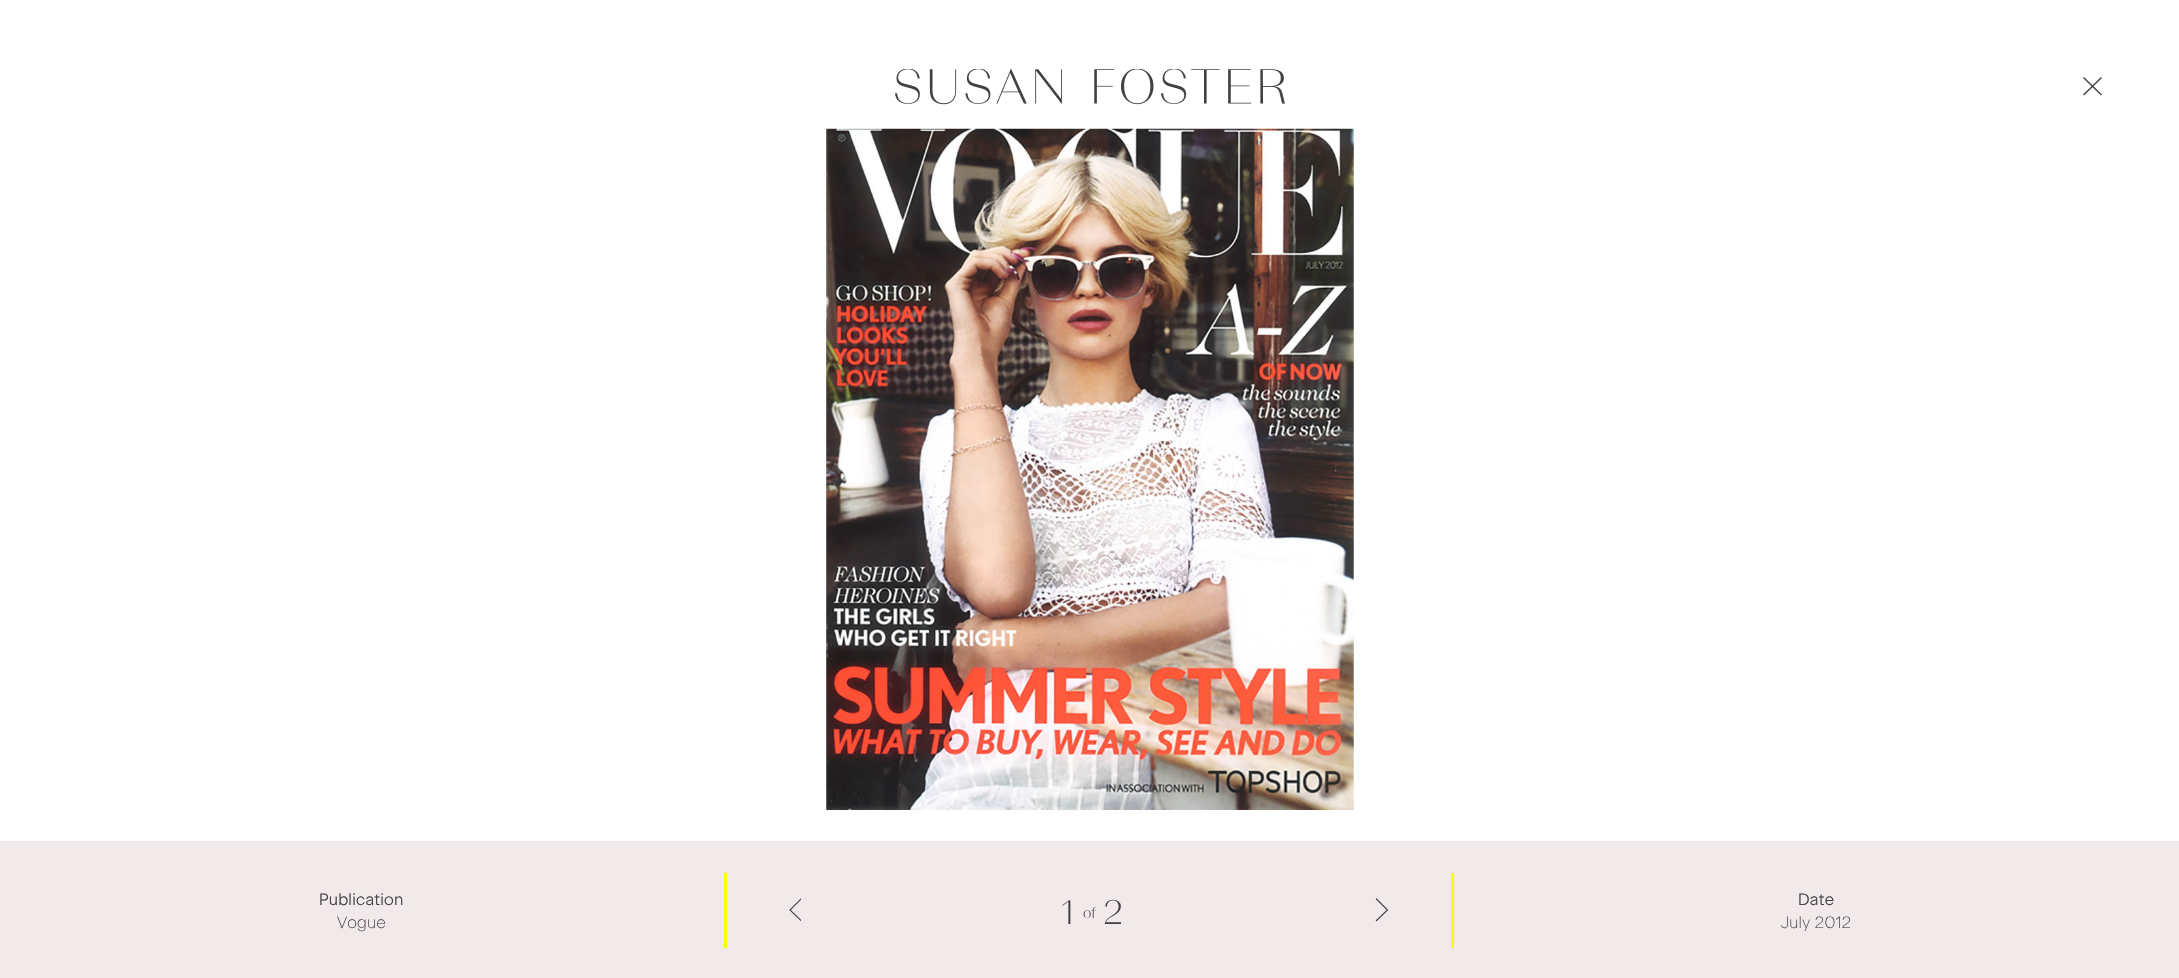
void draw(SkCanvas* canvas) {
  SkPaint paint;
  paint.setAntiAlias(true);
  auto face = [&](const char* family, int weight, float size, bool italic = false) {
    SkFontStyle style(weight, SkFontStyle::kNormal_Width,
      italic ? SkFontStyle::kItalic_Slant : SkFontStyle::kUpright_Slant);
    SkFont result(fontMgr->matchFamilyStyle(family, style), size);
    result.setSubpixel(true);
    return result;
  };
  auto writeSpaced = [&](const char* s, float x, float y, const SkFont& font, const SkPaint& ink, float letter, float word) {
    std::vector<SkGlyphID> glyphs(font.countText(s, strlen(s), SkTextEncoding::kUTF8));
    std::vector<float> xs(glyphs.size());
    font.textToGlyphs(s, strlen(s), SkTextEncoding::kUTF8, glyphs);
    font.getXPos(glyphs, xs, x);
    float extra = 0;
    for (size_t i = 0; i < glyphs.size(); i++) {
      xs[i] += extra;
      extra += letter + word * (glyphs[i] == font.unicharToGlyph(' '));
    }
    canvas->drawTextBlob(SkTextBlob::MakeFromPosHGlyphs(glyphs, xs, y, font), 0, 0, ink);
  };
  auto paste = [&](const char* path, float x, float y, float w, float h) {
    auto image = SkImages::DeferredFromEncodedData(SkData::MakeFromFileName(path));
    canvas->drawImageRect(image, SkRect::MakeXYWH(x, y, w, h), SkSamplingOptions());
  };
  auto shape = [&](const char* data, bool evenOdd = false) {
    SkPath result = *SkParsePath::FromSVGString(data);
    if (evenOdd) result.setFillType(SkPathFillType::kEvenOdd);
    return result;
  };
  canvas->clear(0xffffffff);
  paste("img/1.png", 895, 69, 390, 36);
  paint.setColor(0xff414141);
  canvas->drawPath(shape("M2084 77L2102 94.5L2101 95.5L2083 78Z"), paint);
  canvas->drawPath(shape("M2083 94.5L2101 77L2102 78L2084 95.5Z"), paint);
  paste("img/2.png", 826, 128, 528, 682);
  {
    const struct { float x, y, w, h; SkColor color; } items[] = {
      {0, 841, 2179, 137, 0xfff2eaea},
      {724, 873, 3, 75, 0xfffbff00},
      {1451, 873, 3, 75, 0xfffbff00},
    };
    for (auto [x, y, w, h, color] : items) {
      paint.setColor(color);
      canvas->drawRect(SkRect::MakeXYWH(x, y, w, h), paint);
    }
  }
  canvas->save();
  canvas->clipRect(SkRect::MakeXYWH(789, 898, 12, 25));
  paint.setStroke(true);
  paint.setStrokeWidth(1.1f);
  paint.setColor(0xff414141);
  canvas->drawPath(shape("M801.5 921L790 910L801.5 898.5"), paint);
  canvas->restore();
  canvas->drawPath(shape("M1376 898.5L1387.5 910L1376 921"), paint);
  auto f0 = face("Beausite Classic", 300, 16.25f);
  paint.setStroke(false);
  writeSpaced("Publication", 319, 905, f0, paint, 0.25f, 0);
  auto f1 = face("Beausite Classic", 100, 16.25f);
  writeSpaced("Vogue", 337, 928, f1, paint, 0.25f, 0);
  auto f2 = face("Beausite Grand", 100, 34);
  canvas->drawString("1", 1062, 924, f2, paint);
  auto f3 = face("Beausite Grand", 100, 15);
  canvas->drawString("of", 1083, 918, f3, paint);
  canvas->drawString("2", 1104, 924, f2, paint);
  writeSpaced("Date", 1798, 905, f0, paint, 0.25f, 0);
  writeSpaced("July 2012", 1781, 928, f1, paint, 0.25f, 0);
}
